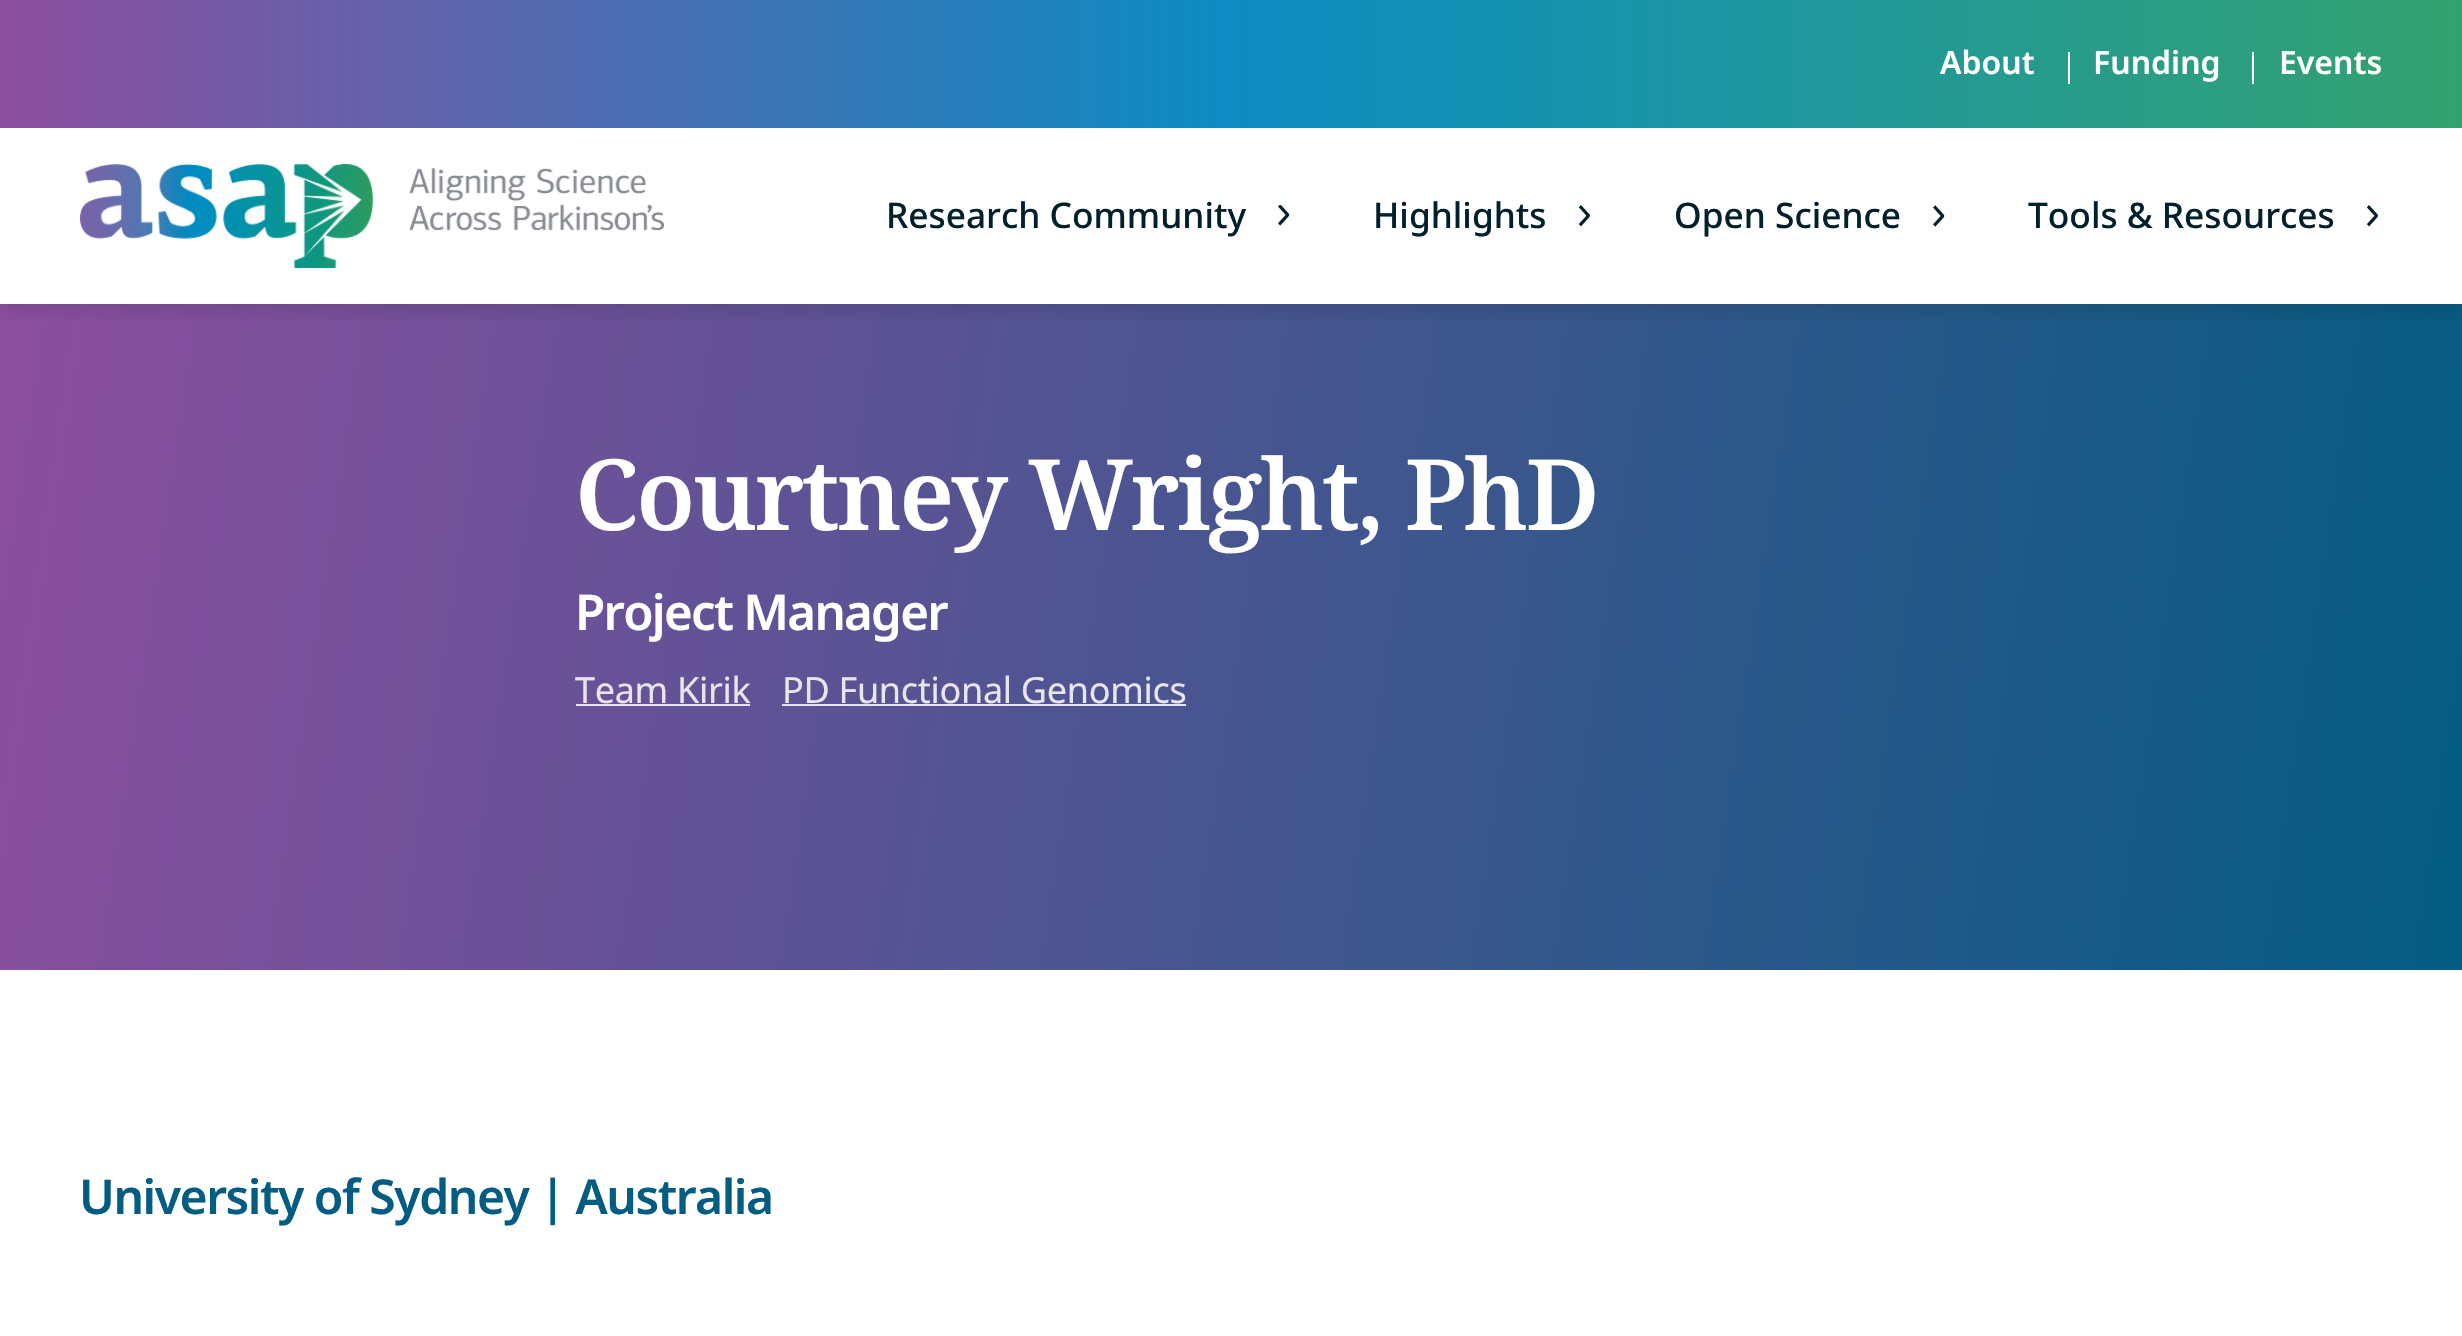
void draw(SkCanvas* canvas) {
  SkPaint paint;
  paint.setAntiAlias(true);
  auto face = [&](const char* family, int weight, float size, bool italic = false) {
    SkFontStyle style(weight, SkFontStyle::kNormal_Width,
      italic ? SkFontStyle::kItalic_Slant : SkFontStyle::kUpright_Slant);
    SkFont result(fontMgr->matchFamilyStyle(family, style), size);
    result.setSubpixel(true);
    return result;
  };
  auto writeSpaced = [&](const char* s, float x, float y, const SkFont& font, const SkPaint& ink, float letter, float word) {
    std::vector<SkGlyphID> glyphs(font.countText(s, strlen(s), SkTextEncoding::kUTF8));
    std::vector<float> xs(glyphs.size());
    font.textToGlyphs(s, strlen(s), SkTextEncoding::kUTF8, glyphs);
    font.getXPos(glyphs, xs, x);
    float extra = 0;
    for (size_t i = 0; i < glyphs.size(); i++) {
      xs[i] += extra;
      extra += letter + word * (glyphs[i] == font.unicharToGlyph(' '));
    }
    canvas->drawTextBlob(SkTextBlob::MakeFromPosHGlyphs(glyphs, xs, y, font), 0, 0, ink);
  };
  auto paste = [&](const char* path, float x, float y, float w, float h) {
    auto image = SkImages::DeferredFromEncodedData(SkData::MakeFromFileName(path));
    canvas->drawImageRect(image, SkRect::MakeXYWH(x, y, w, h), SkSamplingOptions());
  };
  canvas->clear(0xffffffff);
  {
    const SkColor colors[] = {0xff8c4e9f, 0xff0c8dc3, 0xff34a270};
    const float stops[] = {0, 0.5f, 1};
    const SkPoint ends[] = {{0, 64}, {2462, 64}};
    paint.setShader(SkGradientShader::MakeLinear(ends, colors, stops, 3, SkTileMode::kClamp));
    paint.setAlpha(255);
  }
  canvas->drawRect(SkRect::MakeXYWH(0, 0, 2462, 128), paint);
  paint.setShader(nullptr);
  paint.setColor(0xffffffff);
  canvas->drawRect(SkRect::MakeXYWH(2068, 52, 2, 32), paint);
  canvas->drawRect(SkRect::MakeXYWH(2252, 52, 2, 32), paint);
  {
    const SkColor colors[] = {0xff8c4e9f, 0xff035c81};
    const float stops[] = {0, 1};
    const SkPoint ends[] = {{-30, 390}, {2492, 766}};
    paint.setShader(SkGradientShader::MakeLinear(ends, colors, stops, 2, SkTileMode::kClamp));
    paint.setAlpha(255);
  }
  canvas->drawRect(SkRect::MakeXYWH(0, 304, 2462, 666), paint);
  canvas->save();
  canvas->clipRect(SkRect::MakeXYWH(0, 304, 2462, 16));
  paint.setShader(nullptr);
  paint.setColor(0x1a000000);
  paint.setMaskFilter(SkMaskFilter::MakeBlur(kNormal_SkBlurStyle, 10));
  canvas->drawRect(SkRect::MakeXYWH(0, 136, 2462, 176), paint);
  paint.setMaskFilter(nullptr);
  canvas->restore();
  paste("img/1.png", 80, 164, 294, 104);
  paste("img/2.png", 409, 167, 255, 64);
  paste("img/3.png", 1278, 205, 12, 21);
  paste("img/4.png", 1578, 205, 12, 22);
  paste("img/5.png", 1933, 205, 12, 22);
  paste("img/6.png", 2366, 205, 12, 22);
  {
    const SkColor colors[] = {0xffeee4f1, 0xffd9e7ec};
    const float stops[] = {0, 1};
    const SkPoint ends[] = {{-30, 390}, {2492, 766}};
    paint.setShader(SkGradientShader::MakeLinear(ends, colors, stops, 2, SkTileMode::kClamp));
    paint.setAlpha(255);
  }
  canvas->drawRect(SkRect::MakeXYWH(782, 704, 404, 2), paint);
  canvas->drawRect(SkRect::MakeXYWH(576, 704, 174, 2), paint);
  auto f0 = face("Noto Sans", 600, 32);
  paint.setShader(nullptr);
  paint.setColor(0xffffffff);
  {
    const struct { const char* s; float x, y; } items[] = {
      {"About", 1940, 74},
      {"Funding", 2093, 74},
      {"Events", 2279, 74},
    };
    for (auto [s, x, y] : items) {
      canvas->drawString(s, x, y, f0, paint);
    }
  }
  auto f1 = face("Noto Sans", 500, 35.25f);
  paint.setColor(0xff00202c);
  {
    const struct { const char* s; float x, y; } items[] = {
      {"Research Community", 886, 228},
      {"Highlights", 1373, 228},
      {"Open Science", 1674, 228},
      {"Tools & Resources", 2028, 228},
    };
    for (auto [s, x, y] : items) {
      canvas->drawString(s, x, y, f1, paint);
    }
  }
  auto f2 = face("Noto Serif", 600, 98.5f);
  paint.setColor(0xffffffff);
  writeSpaced("Courtney Wright, PhD", 575, 530, f2, paint, -2.6f, 0);
  auto f3 = face("Noto Sans", 600, 49.25f);
  writeSpaced("Project Manager", 575, 630, f3, paint, -1.75f, 0);
  auto f4 = face("Noto Sans", 400, 36);
  paint.setColor(0xffe8e5ef);
  writeSpaced("Team Kirik", 575, 703, f4, paint, -0.3f, 0);
  writeSpaced("PD Functional Genomics", 782, 703, f4, paint, -0.3f, 0);
  auto f5 = face("Noto Sans", 600, 48);
  paint.setColor(0xff035c81);
  writeSpaced("University of Sydney | Australia", 79, 1214, f5, paint, -1.45f, 0);
}
